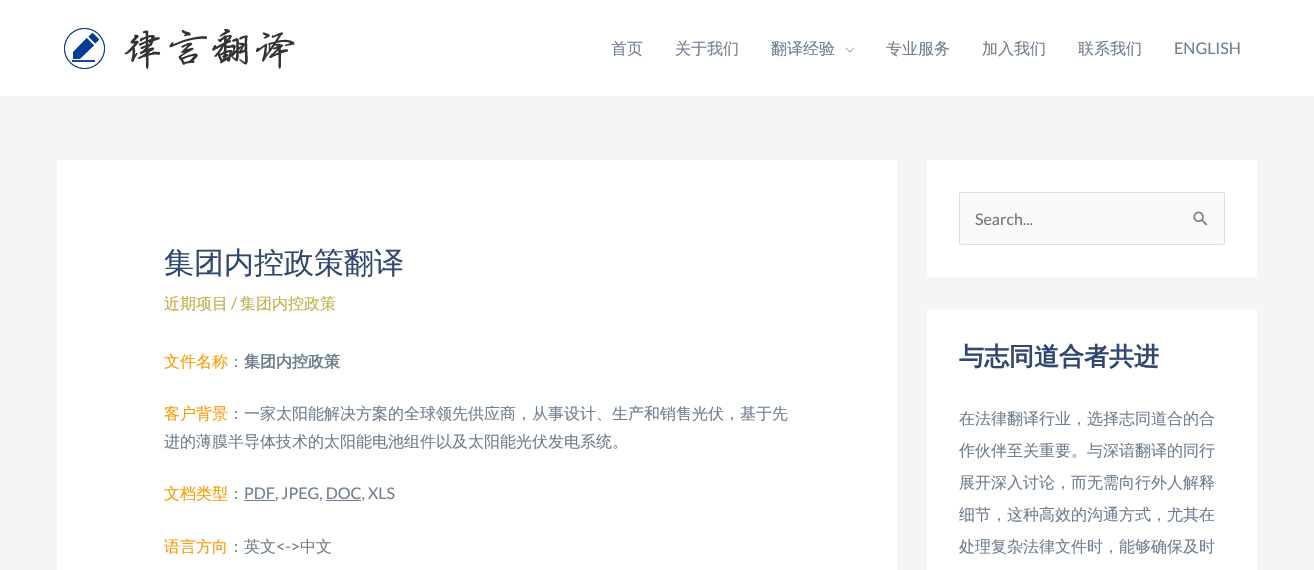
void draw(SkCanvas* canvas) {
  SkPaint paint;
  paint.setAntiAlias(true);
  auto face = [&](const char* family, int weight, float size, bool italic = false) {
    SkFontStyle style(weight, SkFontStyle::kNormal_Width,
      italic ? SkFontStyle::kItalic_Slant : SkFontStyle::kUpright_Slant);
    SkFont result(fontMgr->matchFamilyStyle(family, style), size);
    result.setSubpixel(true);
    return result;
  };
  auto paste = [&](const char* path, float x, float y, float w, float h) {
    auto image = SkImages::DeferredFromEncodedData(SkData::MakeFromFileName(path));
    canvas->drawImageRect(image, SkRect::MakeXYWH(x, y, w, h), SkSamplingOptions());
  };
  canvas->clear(0xfff5f5f5);
  paint.setColor(0xffffffff);
  canvas->drawRect(SkRect::MakeXYWH(0, 0, 1314, 96), paint);
  paste("img/1.png", 64, 28, 231, 41);
  paste("img/2.png", 845, 47, 9, 6);
  {
    const struct { float x, y, w, h; SkColor color; } items[] = {
      {57, 160, 840, 410, 0xffffffff},
      {244, 500, 31, 1, 0xff6f7f8e},
      {326, 500, 35, 1, 0xff6f7f8e},
      {927, 160, 330, 117, 0xffffffff},
    };
    for (auto [x, y, w, h, color] : items) {
      paint.setColor(color);
      canvas->drawRect(SkRect::MakeXYWH(x, y, w, h), paint);
    }
  }
  paint.setColor(0xfffafafa);
  canvas->drawRoundRect(SkRect::MakeXYWH(959.5f, 192.5f, 265, 52), 1.5f, 1.5f, paint);
  paint.setStroke(true);
  paint.setStrokeWidth(1);
  paint.setColor(0xffdddddd);
  canvas->drawRoundRect(SkRect::MakeXYWH(959.5f, 192.5f, 265, 52), 1.5f, 1.5f, paint);
  paste("img/3.png", 1193, 211, 15, 15);
  paint.setStroke(false);
  paint.setColor(0xffffffff);
  canvas->drawRect(SkRect::MakeXYWH(927, 309, 330, 261), paint);
  auto f0 = face("WenQuanYi Zen Hei", 500, 16);
  paint.setColor(0xff6f7f8e);
  {
    const struct { const char* s; float x, y; } items[] = {
      {"首页", 611, 54},
      {"关于我们", 675, 54},
      {"翻译经验", 771, 54},
      {"专业服务", 886, 54},
      {"加入我们", 982, 54},
      {"联系我们", 1078, 54},
    };
    for (auto [s, x, y] : items) {
      canvas->drawString(s, x, y, f0, paint);
    }
  }
  auto f1 = face("Lato", 400, 16);
  canvas->drawString("ENGLISH", 1174, 54, f1, paint);
  auto f2 = face("WenQuanYi Zen Hei", 500, 30);
  paint.setColor(0xff304771);
  canvas->drawString("集团内控政策翻译", 164, 273, f2, paint);
  paint.setColor(0xffc8ac48);
  canvas->drawString("近期项目", 164, 309, f0, paint);
  canvas->drawString("/", 231, 309, f1, paint);
  canvas->drawString("集团内控政策", 240, 309, f0, paint);
  paint.setColor(0xffff9900);
  canvas->drawString("文件名称", 164, 367, f0, paint);
  paint.setColor(0xff6f7f8e);
  canvas->drawString("：", 228, 367, f0, paint);
  auto f3 = face("WenQuanYi Zen Hei", 700, 16);
  canvas->drawString("集团内控政策", 244, 367, f3, paint);
  paint.setColor(0xffff9900);
  canvas->drawString("客户背景", 164, 419, f0, paint);
  paint.setColor(0xff6f7f8e);
  canvas->drawString("：一家太阳能解决方案的全球领先供应商，从事设计、生产和销售光伏，基于先", 228, 419, f0, paint);
  canvas->drawString("进的薄膜半导体技术的太阳能电池组件以及太阳能光伏发电系统。", 164, 447, f0, paint);
  paint.setColor(0xffff9900);
  canvas->drawString("文档类型", 164, 499, f0, paint);
  paint.setColor(0xff6f7f8e);
  canvas->drawString("：", 228, 499, f0, paint);
  canvas->drawString("PDF, JPEG, DOC, XLS", 244, 499, f1, paint);
  paint.setColor(0xffff9900);
  canvas->drawString("语言方向", 164, 552, f0, paint);
  paint.setColor(0xff6f7f8e);
  canvas->drawString("：英文", 228, 552, f0, paint);
  canvas->drawString("<->", 276, 552, f1, paint);
  canvas->drawString("中文", 300, 552, f0, paint);
  paint.setColor(0xff757575);
  canvas->drawString("Search...", 975, 225, f1, paint);
  auto f4 = face("WenQuanYi Zen Hei", 700, 25);
  paint.setColor(0xff304771);
  canvas->drawString("与志同道合者共进", 959, 365, f4, paint);
  paint.setColor(0xff6f7f8e);
  {
    const struct { const char* s; float x, y; } items[] = {
      {"在法律翻译行业，选择志同道合的合", 959, 424},
      {"作伙伴至关重要。与深谙翻译的同行", 959, 456},
      {"展开深入讨论，而无需向行外人解释", 959, 488},
      {"细节，这种高效的沟通方式，尤其在", 959, 520},
      {"处理复杂法律文件时，能够确保及时", 959, 552},
    };
    for (auto [s, x, y] : items) {
      canvas->drawString(s, x, y, f0, paint);
    }
  }
}
